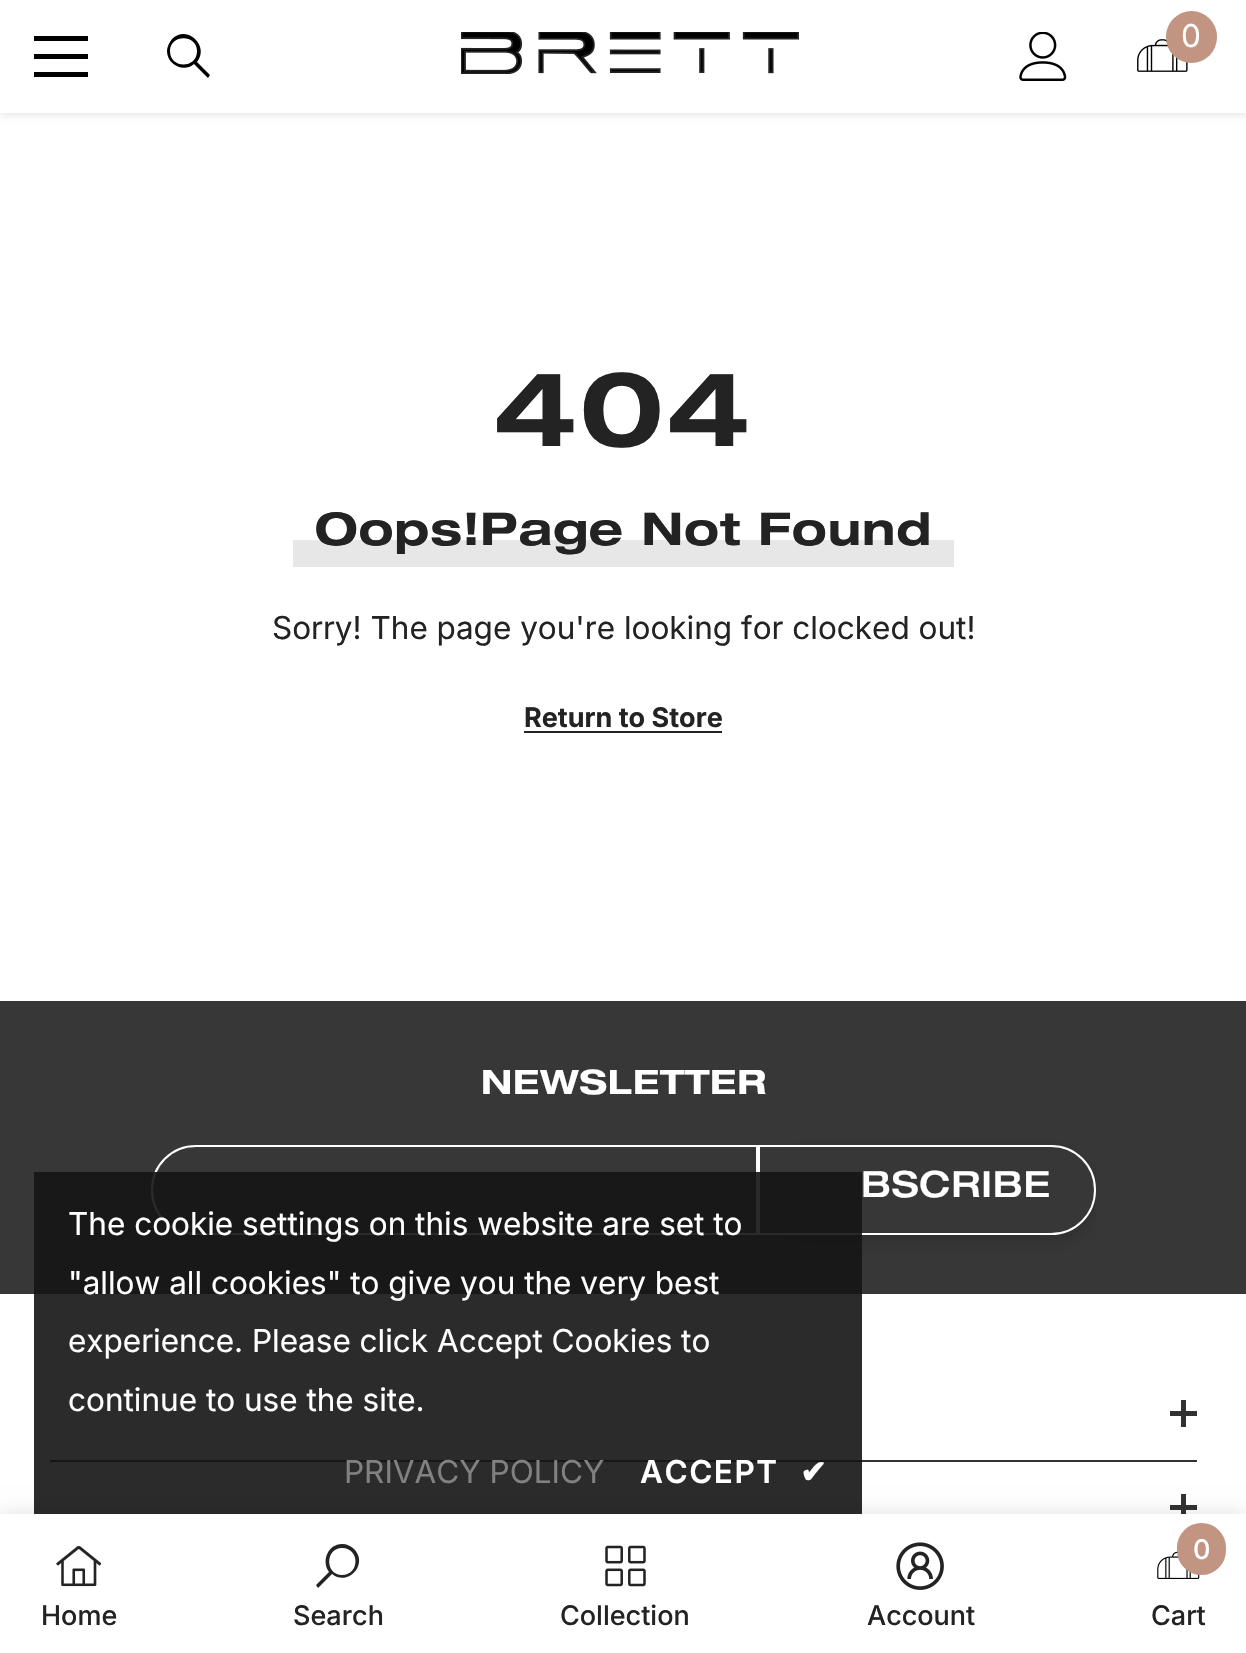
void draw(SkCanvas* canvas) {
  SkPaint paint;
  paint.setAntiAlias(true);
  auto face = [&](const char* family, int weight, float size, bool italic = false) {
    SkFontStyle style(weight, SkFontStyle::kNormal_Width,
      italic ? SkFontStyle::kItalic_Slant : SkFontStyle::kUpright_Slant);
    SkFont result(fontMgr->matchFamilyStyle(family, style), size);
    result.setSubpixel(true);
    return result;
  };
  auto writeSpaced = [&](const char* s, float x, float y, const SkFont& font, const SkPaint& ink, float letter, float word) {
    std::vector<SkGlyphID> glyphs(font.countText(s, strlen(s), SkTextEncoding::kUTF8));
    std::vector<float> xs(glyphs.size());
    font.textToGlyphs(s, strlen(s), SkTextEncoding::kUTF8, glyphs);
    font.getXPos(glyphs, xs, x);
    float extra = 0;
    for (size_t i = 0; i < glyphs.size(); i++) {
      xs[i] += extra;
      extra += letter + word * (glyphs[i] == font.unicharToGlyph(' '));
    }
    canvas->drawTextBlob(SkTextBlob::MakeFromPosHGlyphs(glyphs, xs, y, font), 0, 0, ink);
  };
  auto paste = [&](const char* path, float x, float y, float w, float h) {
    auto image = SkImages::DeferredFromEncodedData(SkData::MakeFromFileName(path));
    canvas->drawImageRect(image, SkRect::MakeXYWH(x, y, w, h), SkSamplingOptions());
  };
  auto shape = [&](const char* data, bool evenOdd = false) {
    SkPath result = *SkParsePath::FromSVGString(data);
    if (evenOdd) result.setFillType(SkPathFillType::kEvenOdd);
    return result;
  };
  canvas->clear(0xffffffff);
  paint.setColor(0x1a000000);
  paint.setMaskFilter(SkMaskFilter::MakeBlur(kNormal_SkBlurStyle, 3.5f));
  canvas->drawRect(SkRect::MakeXYWH(0, 2, 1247, 113), paint);
  paint.setMaskFilter(nullptr);
  {
    const struct { float x, y, w, h; SkColor color; } items[] = {
      {0, 0, 1246, 113, 0xffffffff},
      {34, 54, 54, 5, 0xff000000},
      {34, 36, 54, 5, 0xff000000},
      {34, 72, 54, 5, 0xff000000},
    };
    for (auto [x, y, w, h, color] : items) {
      paint.setColor(color);
      canvas->drawRect(SkRect::MakeXYWH(x, y, w, h), paint);
    }
  }
  canvas->drawPath(shape("M167 51C167 65 184 73 194 64L208 78L210 75L197 62C210 46 187 24 172 39C169 43 167 47 167 51ZM170 51C170 34 197 34 197 51C197 69 170 69 170 51Z"), paint);
  paste("img/1.png", 461, 32, 338, 42);
  paste("img/2.png", 1019, 32, 48, 49);
  paste("img/3.png", 1137, 39, 51, 33);
  paint.setColor(0xffc29582);
  canvas->drawRoundRect(SkRect::MakeXYWH(1166, 11, 51, 52), 25.5f, 25.5f, paint);
  {
    const struct { float x, y, w, h; SkColor color; } items[] = {
      {293, 540, 661, 27, 0xffe7e7e7},
      {524, 731, 198, 2, 0xff232323},
      {0, 1001, 1246, 293, 0xff383737},
    };
    for (auto [x, y, w, h, color] : items) {
      paint.setColor(color);
      canvas->drawRect(SkRect::MakeXYWH(x, y, w, h), paint);
    }
  }
  paint.setStroke(true);
  paint.setStrokeWidth(2);
  paint.setColor(0xffffffff);
  canvas->drawPath(shape("M196 1146H757V1234H196C171.5 1234 152 1214.5 152 1190C152 1165.5 171.5 1146 196 1146Z"), paint);
  canvas->save();
  canvas->clipRect(SkRect::MakeXYWH(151, 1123, 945, 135));
  canvas->clipPath(shape("M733 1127H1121V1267H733ZM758 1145H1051C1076 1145 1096 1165 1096 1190C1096 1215 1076 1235 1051 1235H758Z", true), true);
  paint.setStroke(false);
  paint.setColor(0x26000000);
  paint.setMaskFilter(SkMaskFilter::MakeBlur(kNormal_SkBlurStyle, 8));
  canvas->drawRoundRect(SkRect::MakeXYWH(758, 1152, 338, 90), 45, 45, paint);
  paint.setMaskFilter(nullptr);
  canvas->restore();
  paint.setStroke(true);
  paint.setColor(0xffffffff);
  canvas->drawPath(shape("M759 1146H1051C1075.5 1146 1095 1165.5 1095 1190C1095 1214.5 1075.5 1234 1051 1234H759Z"), paint);
  paint.setStroke(false);
  {
    const struct { float x, y, w, h; SkColor color; } items[] = {
      {50, 1460, 1147, 2, 0xff323232},
      {1181, 1400, 5, 27, 0xff323232},
      {1170, 1411, 27, 5, 0xff323232},
      {1181, 1494, 5, 27, 0xff323232},
      {1170, 1505, 27, 5, 0xff323232},
      {34, 1172, 828, 342, 0xe6141414},
    };
    for (auto [x, y, w, h, color] : items) {
      paint.setColor(color);
      canvas->drawRect(SkRect::MakeXYWH(x, y, w, h), paint);
    }
  }
  paint.setColor(0x1f000000);
  paint.setMaskFilter(SkMaskFilter::MakeBlur(kNormal_SkBlurStyle, 10));
  canvas->drawRect(SkRect::MakeXYWH(0, 1514, 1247, 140), paint);
  paint.setMaskFilter(nullptr);
  paint.setColor(0xffffffff);
  canvas->drawRect(SkRect::MakeXYWH(0, 1514, 1246, 139), paint);
  paste("img/4.png", 56, 1546, 45, 41);
  paint.setColor(0xff232323);
  canvas->drawPath(shape("M342 1544C328 1544 321 1561 329 1572L316 1585L318 1588L332 1574C348 1587 369 1564 354 1549C351 1546 347 1544 342 1544ZM342 1548C360 1548 360 1575 342 1575C325 1575 325 1548 342 1548Z"), paint);
  paste("img/5.png", 605, 1545, 41, 42);
  paste("img/6.png", 896, 1542, 48, 48);
  paste("img/7.png", 1157, 1551, 43, 28);
  paint.setColor(0xffc29582);
  canvas->drawRoundRect(SkRect::MakeXYWH(1177, 1523, 49, 52), 24.5f, 24.5f, paint);
  auto f0 = face("Inter", 400, 31.5f);
  paint.setColor(0xffffffff);
  canvas->drawString("0", 1181, 47, f0, paint);
  auto f1 = face("Helvetica Neue", 700, 103.5f);
  paint.setColor(0xff232323);
  writeSpaced("404", 493, 446, f1, paint, 2, 0);
  auto f2 = face("Helvetica Neue", 700, 45);
  writeSpaced("Oops!Page Not Found", 315, 545, f2, paint, 0.9f, 0);
  canvas->drawString("Sorry! The page you're looking for clocked out!", 272, 639, f0, paint);
  auto f3 = face("Inter", 700, 27);
  canvas->drawString("Return to Store", 524, 727, f3, paint);
  auto f4 = face("Helvetica Neue", 700, 33.75f);
  paint.setColor(0xffffffff);
  writeSpaced("NEWSLETTER", 481, 1094, f4, paint, 0.75f, 0);
  auto f5 = face("Helvetica Neue", 500, 36);
  writeSpaced("BSCRIBE", 861, 1197, f5, paint, 0.75f, 0);
  auto f6 = face("Inter", 500, 27);
  paint.setColor(0xff232323);
  {
    const struct { const char* s; float x, y; } items[] = {
      {"Home", 41, 1625},
      {"Search", 293, 1625},
      {"Collection", 560, 1625},
      {"Account", 867, 1625},
    };
    for (auto [s, x, y] : items) {
      canvas->drawString(s, x, y, f6, paint);
    }
  }
  paint.setColor(0xffffffff);
  canvas->drawString("0", 1193, 1559, f6, paint);
  paint.setColor(0xff232323);
  canvas->drawString("Cart", 1151, 1625, f6, paint);
  paint.setColor(0xffffffff);
  {
    const struct { const char* s; float x, y; } items[] = {
      {"The cookie settings on this website are set to", 68, 1235},
      {"\"allow all cookies\" to give you the very best", 68, 1294},
      {"experience. Please click Accept Cookies to", 68, 1352},
      {"continue to use the site.", 68, 1411},
    };
    for (auto [s, x, y] : items) {
      canvas->drawString(s, x, y, f0, paint);
    }
  }
  paint.setColor(0xff818181);
  canvas->drawString("PRIVACY POLICY", 344, 1483, f0, paint);
  auto f7 = face("Inter", 600, 31.5f);
  paint.setColor(0xffffffff);
  writeSpaced("ACCEPT", 640, 1483, f7, paint, 1.5f, 0);
  auto f8 = face("DejaVu Sans", 700, 31.5f);
  writeSpaced("✔", 800, 1483, f8, paint, 1.5f, 0);
}
